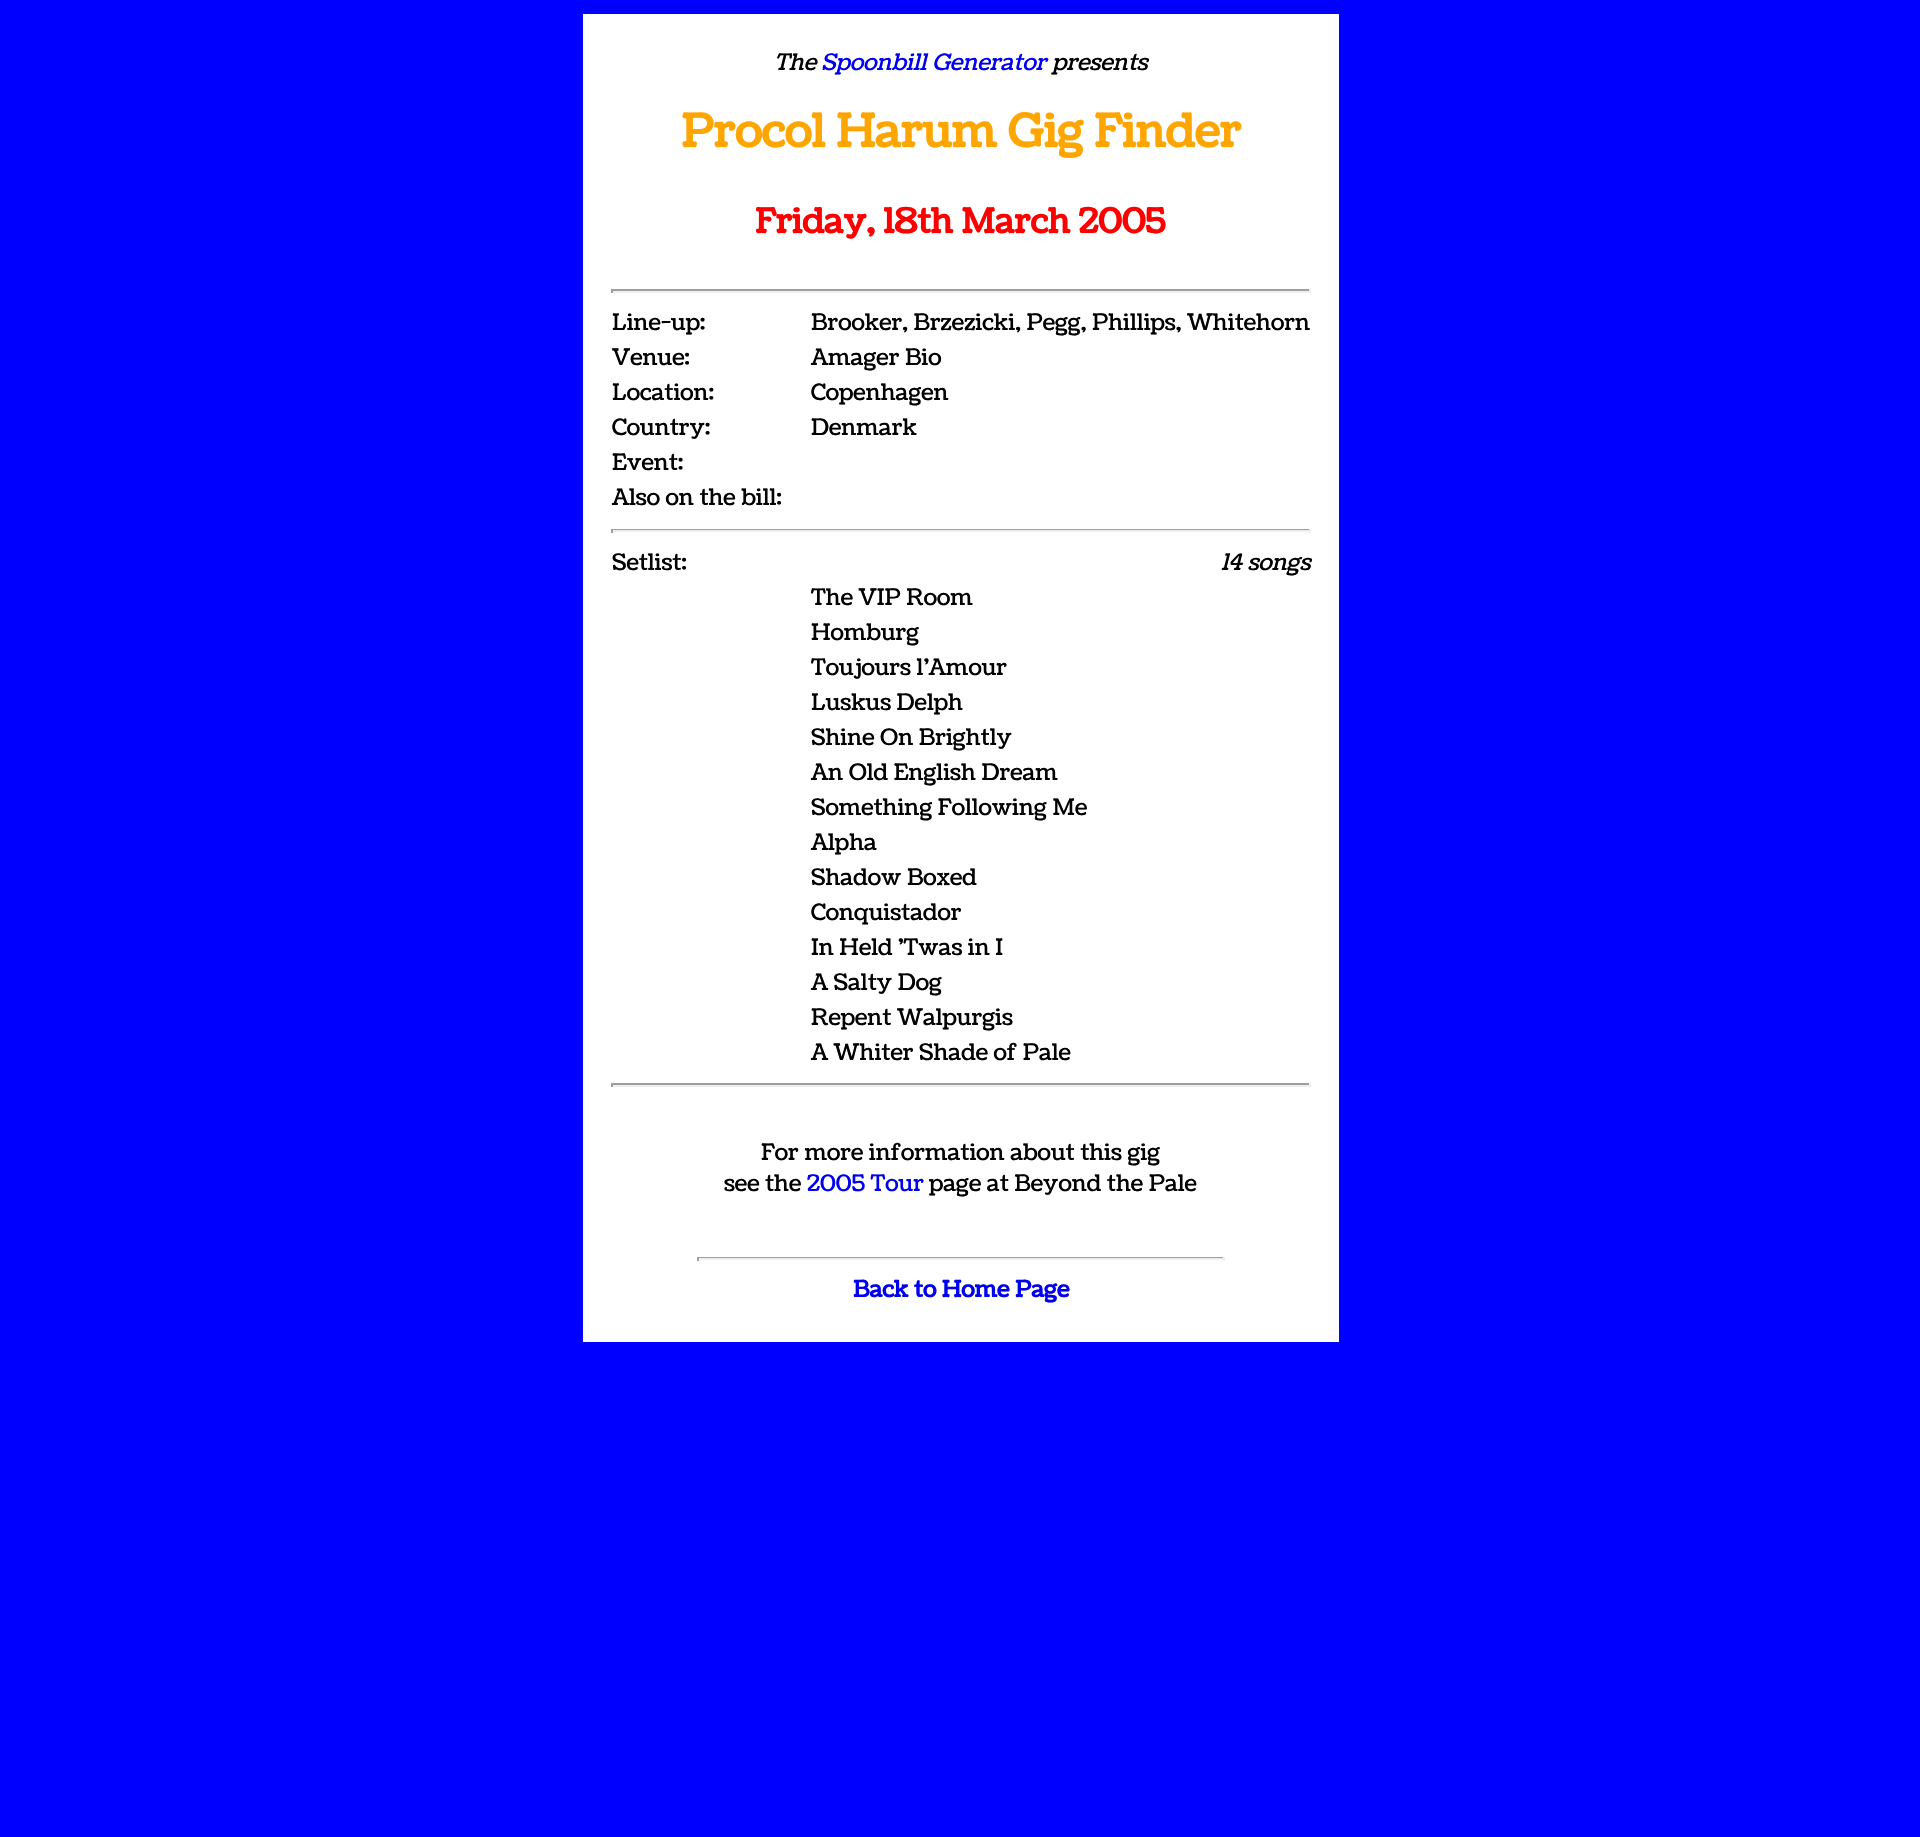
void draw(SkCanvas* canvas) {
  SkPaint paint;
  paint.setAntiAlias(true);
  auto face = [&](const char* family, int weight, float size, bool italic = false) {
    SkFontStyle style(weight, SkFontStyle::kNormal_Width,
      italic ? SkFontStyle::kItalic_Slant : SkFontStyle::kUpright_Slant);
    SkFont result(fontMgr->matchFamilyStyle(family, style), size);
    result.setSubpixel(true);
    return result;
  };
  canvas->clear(0xff0000ff);
  {
    const struct { float x, y, w, h; SkColor color; } items[] = {
      {583, 14, 756, 1328, 0xffffffff},
      {611, 289, 700, 2, 0xff9f9f9f},
      {1309, 289, 2, 4, 0xffeeeeee},
      {611, 291, 700, 2, 0xffeeeeee},
      {611, 289, 2, 4, 0xff9f9f9f},
      {611, 529, 700, 1, 0xff9f9f9f},
      {1309, 529, 2, 4, 0xffeeeeee},
      {611, 530, 700, 2, 0xffeeeeee},
      {611, 529, 2, 4, 0xff9f9f9f},
      {611, 1083, 700, 2, 0xff9f9f9f},
      {1309, 1083, 2, 4, 0xffeeeeee},
      {611, 1085, 700, 2, 0xffeeeeee},
      {611, 1083, 2, 4, 0xff9f9f9f},
      {697, 1257, 528, 1, 0xff9f9f9f},
      {1223, 1257, 2, 4, 0xffeeeeee},
      {697, 1258, 528, 2, 0xffeeeeee},
      {697, 1257, 2, 4, 0xff9f9f9f},
    };
    for (auto [x, y, w, h, color] : items) {
      paint.setColor(color);
      canvas->drawRect(SkRect::MakeXYWH(x, y, w, h), paint);
    }
  }
  auto f0 = face("Coustard", 400, 22.75f, true);
  paint.setColor(0xff000000);
  canvas->drawString("The", 774, 70, f0, paint);
  paint.setColor(0xff0000ee);
  canvas->drawString("Spoonbill Generator", 821, 70, f0, paint);
  paint.setColor(0xff000000);
  canvas->drawString("presents", 1052, 70, f0, paint);
  auto f1 = face("Coustard", 700, 45.5f);
  paint.setColor(0xffffa500);
  canvas->drawString("Procol Harum Gig Finder", 681, 147, f1, paint);
  auto f2 = face("Coustard", 700, 34.1f);
  paint.setColor(0xffff0000);
  canvas->drawString("Friday, 18th March 2005", 755, 233, f2, paint);
  auto f3 = face("Coustard", 400, 22.75f);
  paint.setColor(0xff000000);
  {
    const struct { const char* s; float x, y; } items[] = {
      {"Line-up:", 612, 330},
      {"Brooker, Brzezicki, Pegg, Phillips, Whitehorn", 811, 330},
      {"Venue:", 612, 365},
      {"Amager Bio", 811, 365},
      {"Location:", 612, 400},
      {"Copenhagen", 811, 400},
      {"Country:", 612, 435},
      {"Denmark", 811, 435},
      {"Event:", 612, 470},
      {"Also on the bill:", 612, 505},
      {"Setlist:", 612, 570},
    };
    for (auto [s, x, y] : items) {
      canvas->drawString(s, x, y, f3, paint);
    }
  }
  canvas->drawString("14 songs", 1221, 570, f0, paint);
  {
    const struct { const char* s; float x, y; } items[] = {
      {"The VIP Room", 811, 605},
      {"Homburg", 811, 640},
      {"Toujours l’Amour", 811, 675},
      {"Luskus Delph", 811, 710},
      {"Shine On Brightly", 811, 745},
      {"An Old English Dream", 811, 780},
      {"Something Following Me", 811, 815},
      {"Alpha", 811, 850},
      {"Shadow Boxed", 811, 885},
      {"Conquistador", 811, 920},
      {"In Held 'Twas in I", 811, 955},
      {"A Salty Dog", 811, 990},
      {"Repent Walpurgis", 811, 1025},
      {"A Whiter Shade of Pale", 811, 1060},
      {"For more information about this gig", 761, 1160},
      {"see the", 724, 1191},
    };
    for (auto [s, x, y] : items) {
      canvas->drawString(s, x, y, f3, paint);
    }
  }
  paint.setColor(0xff0000ee);
  canvas->drawString("2005 Tour", 807, 1191, f3, paint);
  paint.setColor(0xff000000);
  canvas->drawString("page at Beyond the Pale", 929, 1191, f3, paint);
  auto f4 = face("Coustard", 700, 22.75f);
  paint.setColor(0xff0000ee);
  canvas->drawString("Back to Home Page", 853, 1297, f4, paint);
}
